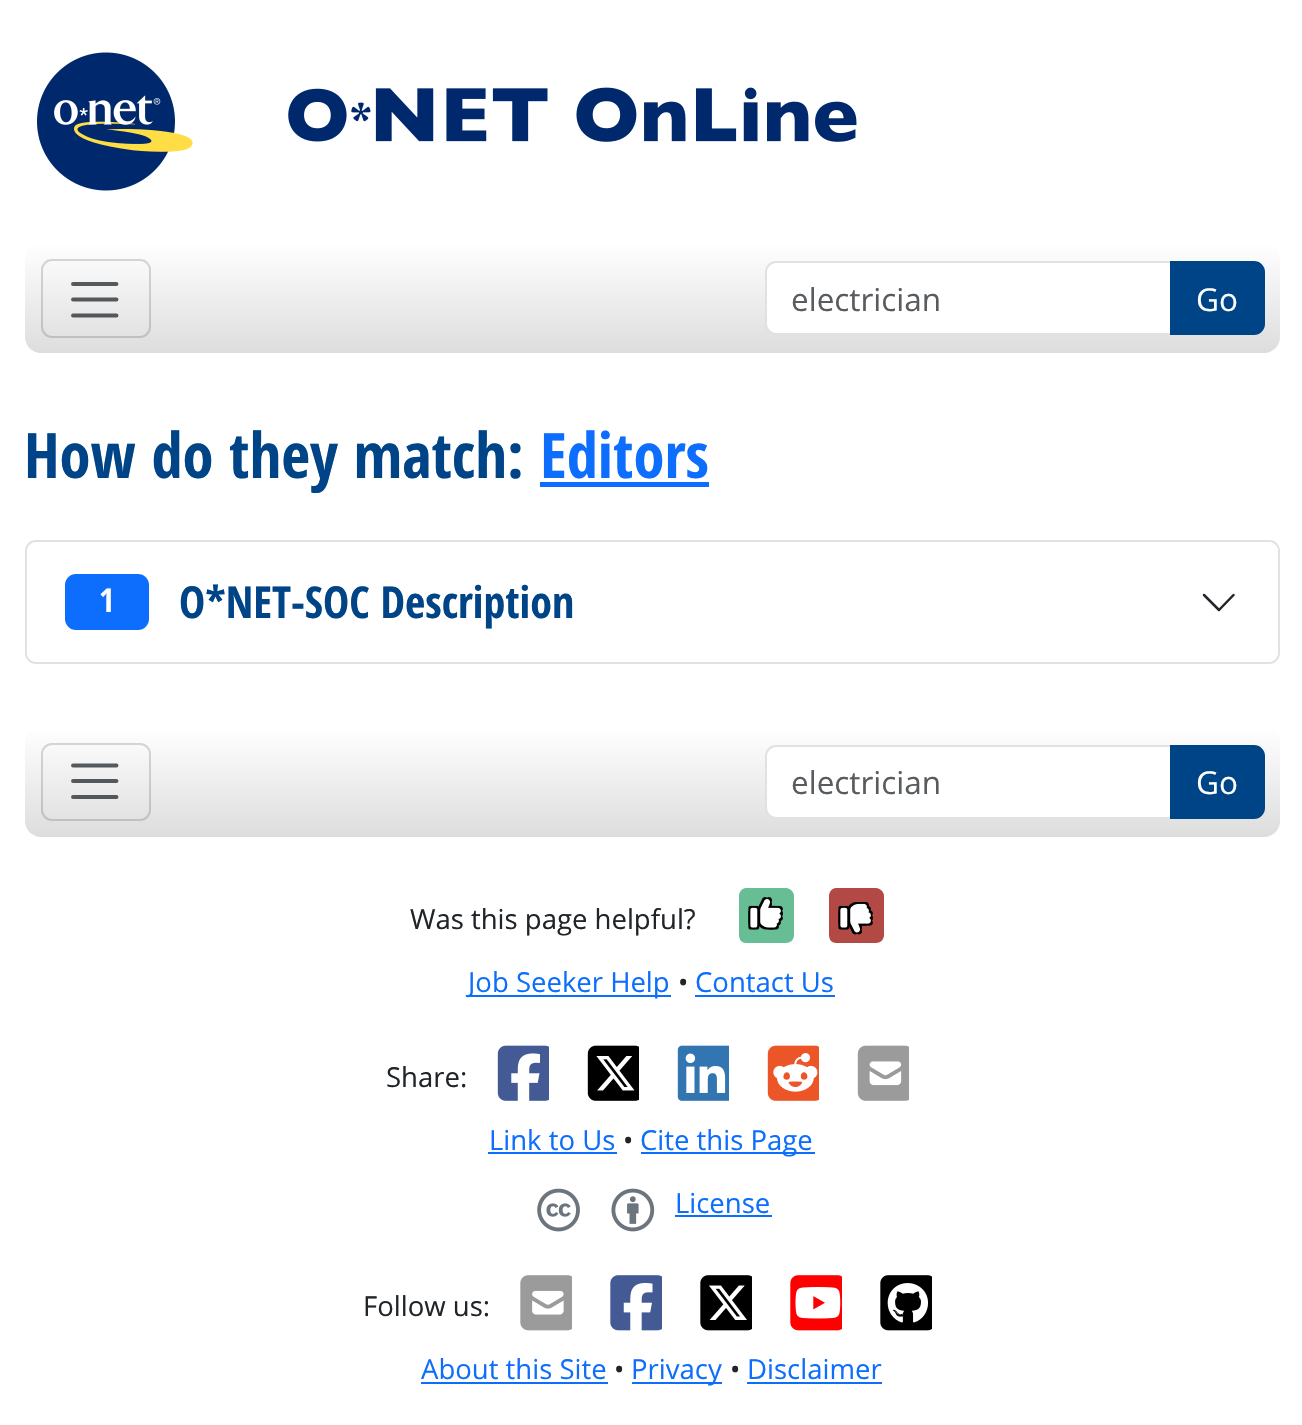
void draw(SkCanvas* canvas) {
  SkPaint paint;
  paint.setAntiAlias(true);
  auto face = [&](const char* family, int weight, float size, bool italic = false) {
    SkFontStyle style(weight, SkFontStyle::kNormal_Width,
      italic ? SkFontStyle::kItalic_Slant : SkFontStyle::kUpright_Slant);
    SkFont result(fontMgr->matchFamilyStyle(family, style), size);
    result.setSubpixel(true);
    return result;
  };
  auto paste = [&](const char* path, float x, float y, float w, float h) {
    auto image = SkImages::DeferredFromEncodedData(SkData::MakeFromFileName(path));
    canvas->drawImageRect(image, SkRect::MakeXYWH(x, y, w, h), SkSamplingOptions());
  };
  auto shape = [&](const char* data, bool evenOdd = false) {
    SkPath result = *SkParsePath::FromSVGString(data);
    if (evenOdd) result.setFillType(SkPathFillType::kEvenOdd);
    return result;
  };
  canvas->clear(0xffffffff);
  paste("img/1.png", 37, 52, 820, 139);
  {
    const SkColor colors[] = {0xffffffff, 0xffdddddd};
    const float stops[] = {0, 1};
    const SkPoint ends[] = {{653, 243}, {653, 353}};
    paint.setShader(SkGradientShader::MakeLinear(ends, colors, stops, 2, SkTileMode::kClamp));
    paint.setAlpha(255);
  }
  canvas->drawRoundRect(SkRect::MakeXYWH(25, 243, 1255, 110), 16, 16, paint);
  paint.setStroke(true);
  paint.setStrokeWidth(2);
  paint.setShader(nullptr);
  paint.setColor(0x26000000);
  canvas->drawRoundRect(SkRect::MakeXYWH(42, 260, 108, 77), 10, 10, paint);
  paint.setStrokeWidth(3.9f);
  paint.setStrokeCap(SkPaint::kRound_Cap);
  paint.setColor(0xbf212529);
  canvas->drawPath(shape("M73 284H116.5M73 299.5H116.5M73 315.5H116.5"), paint);
  paint.setStroke(false);
  paint.setColor(0xffffffff);
  canvas->drawPath(shape("M776 262H1171V334H776C770.5 334 766 329.5 766 324V272C766 266.5 770.5 262 776 262Z"), paint);
  paint.setStroke(true);
  paint.setStrokeWidth(2);
  paint.setStrokeCap(SkPaint::kButt_Cap);
  paint.setColor(0xffdee2e6);
  canvas->drawPath(shape("M776 262H1171V334H776C770.5 334 766 329.5 766 324V272C766 266.5 770.5 262 776 262Z"), paint);
  paint.setStroke(false);
  paint.setColor(0xff004488);
  canvas->drawPath(shape("M1171 262H1254C1259.5 262 1264 266.5 1264 272V324C1264 329.5 1259.5 334 1254 334H1171Z"), paint);
  paint.setStroke(true);
  canvas->drawPath(shape("M1171 262H1254C1259.5 262 1264 266.5 1264 272V324C1264 329.5 1259.5 334 1254 334H1171Z"), paint);
  paint.setStroke(false);
  paint.setColor(0xff0d6efd);
  canvas->drawRect(SkRect::MakeXYWH(540, 482, 169, 5), paint);
  paint.setStroke(true);
  paint.setColor(0xffdee2e6);
  canvas->drawRoundRect(SkRect::MakeXYWH(26, 541, 1253, 122), 10, 10, paint);
  paint.setStroke(false);
  paint.setColor(0xffffffff);
  canvas->drawRoundRect(SkRect::MakeXYWH(27, 542, 1251, 120), 9, 9, paint);
  paint.setColor(0xff0d6efd);
  canvas->drawRoundRect(SkRect::MakeXYWH(65, 574, 84, 56), 11, 11, paint);
  paint.setStroke(true);
  paint.setStrokeWidth(2.5f);
  paint.setStrokeCap(SkPaint::kRound_Cap);
  paint.setStrokeJoin(SkPaint::kRound_Join);
  paint.setColor(0xff212529);
  canvas->drawPath(shape("M1204 595L1219 610L1233.5 595"), paint);
  paint.setStroke(false);
  {
    const SkColor colors[] = {0xffffffff, 0xffdddddd};
    const float stops[] = {0, 1};
    const SkPoint ends[] = {{653, 727}, {653, 837}};
    paint.setShader(SkGradientShader::MakeLinear(ends, colors, stops, 2, SkTileMode::kClamp));
    paint.setAlpha(255);
  }
  canvas->drawRoundRect(SkRect::MakeXYWH(25, 727, 1255, 110), 16, 16, paint);
  paint.setStroke(true);
  paint.setStrokeWidth(2);
  paint.setStrokeCap(SkPaint::kButt_Cap);
  paint.setStrokeJoin(SkPaint::kMiter_Join);
  paint.setShader(nullptr);
  paint.setColor(0x26000000);
  canvas->drawRoundRect(SkRect::MakeXYWH(42, 744, 108, 76), 10, 10, paint);
  paint.setStrokeWidth(3.9f);
  paint.setStrokeCap(SkPaint::kRound_Cap);
  paint.setColor(0xbf212529);
  canvas->drawPath(shape("M73 765.5H116.5M73 781H116.5M73 797H116.5"), paint);
  paint.setStroke(false);
  paint.setColor(0xffffffff);
  canvas->drawPath(shape("M776 746H1171V818H776C770.5 818 766 813.5 766 808V756C766 750.5 770.5 746 776 746Z"), paint);
  paint.setStroke(true);
  paint.setStrokeWidth(2);
  paint.setStrokeCap(SkPaint::kButt_Cap);
  paint.setColor(0xffdee2e6);
  canvas->drawPath(shape("M776 746H1171V818H776C770.5 818 766 813.5 766 808V756C766 750.5 770.5 746 776 746Z"), paint);
  paint.setStroke(false);
  paint.setColor(0xff004488);
  canvas->drawPath(shape("M1171 746H1254C1259.5 746 1264 750.5 1264 756V808C1264 813.5 1259.5 818 1254 818H1171Z"), paint);
  paint.setStroke(true);
  canvas->drawPath(shape("M1171 746H1254C1259.5 746 1264 750.5 1264 756V808C1264 813.5 1259.5 818 1254 818H1171Z"), paint);
  paint.setStroke(false);
  paint.setColor(0xff67be94);
  canvas->drawPath(shape("M746 888H786C790 888 794 892 794 896V935C794 940 790 943 786 943H746C742 943 739 940 739 935V896C739 892 742 888 746 888Z"), paint);
  paste("img/2.png", 748, 897, 28, 28);
  paste("img/5.png", 753, 901, 30, 29);
  paste("img/3.png", 754, 897, 29, 28);
  paste("img/6.png", 748, 910, 26, 20);
  paste("img/4.png", 750, 899, 31, 29);
  paint.setColor(0xffb24945);
  canvas->drawPath(shape("M836 888H876C880 888 884 892 884 896V935C884 940 880 943 876 943H836C832 943 829 940 829 935V896C829 892 832 888 836 888Z"), paint);
  paste("img/7.png", 838, 902, 22, 23);
  paste("img/10.png", 843, 906, 30, 29);
  paste("img/8.png", 844, 902, 29, 28);
  paste("img/11.png", 838, 910, 30, 25);
  paste("img/9.png", 840, 903, 31, 30);
  paint.setColor(0xff0d6efd);
  canvas->drawRect(SkRect::MakeXYWH(468, 995, 203, 2), paint);
  canvas->drawRect(SkRect::MakeXYWH(695, 995, 140, 2), paint);
  paste("img/12.png", 497, 1045, 52, 56);
  paste("img/13.png", 587, 1045, 52, 56);
  paste("img/14.png", 677, 1045, 52, 56);
  paste("img/15.png", 767, 1045, 52, 56);
  paste("img/16.png", 857, 1045, 52, 56);
  canvas->drawRect(SkRect::MakeXYWH(488, 1152, 129, 2), paint);
  canvas->drawRect(SkRect::MakeXYWH(641, 1152, 174, 2), paint);
  paste("img/17.png", 537, 1188, 43, 44);
  paste("img/18.png", 611, 1188, 44, 44);
  canvas->drawRect(SkRect::MakeXYWH(675, 1215, 97, 2), paint);
  paste("img/19.png", 520, 1275, 52, 56);
  paste("img/20.png", 610, 1275, 52, 56);
  paste("img/21.png", 700, 1275, 52, 56);
  paste("img/22.png", 790, 1275, 52, 56);
  paste("img/23.png", 880, 1275, 52, 56);
  {
    const struct { float x, y, w, h; SkColor color; } items[] = {
      {421, 1382, 187, 2, 0xff0d6efd},
      {632, 1382, 90, 2, 0xff0d6efd},
      {747, 1382, 135, 2, 0xff0d6efd},
    };
    for (auto [x, y, w, h, color] : items) {
      paint.setColor(color);
      canvas->drawRect(SkRect::MakeXYWH(x, y, w, h), paint);
    }
  }
  auto f0 = face("Open Sans", 400, 31.5f);
  paint.setColor(0xff595c5f);
  canvas->drawString("electrician", 791, 311, f0, paint);
  paint.setColor(0xffffffff);
  canvas->drawString("Go", 1196, 311, f0, paint);
  auto f1 = face("Open Sans Condensed", 700, 62.75f);
  paint.setColor(0xff004488);
  canvas->drawString("How do they match:", 24, 478, f1, paint);
  paint.setColor(0xff0d6efd);
  canvas->drawString("Editors", 540, 478, f1, paint);
  auto f2 = face("Open Sans Condensed", 700, 33);
  paint.setColor(0xffffffff);
  canvas->drawString("1", 99, 612, f2, paint);
  auto f3 = face("Open Sans Condensed", 700, 44);
  paint.setColor(0xff004488);
  canvas->drawString("O*NET-SOC Description", 179, 618, f3, paint);
  paint.setColor(0xff595c5f);
  canvas->drawString("electrician", 791, 794, f0, paint);
  paint.setColor(0xffffffff);
  canvas->drawString("Go", 1196, 794, f0, paint);
  auto f4 = face("Open Sans", 400, 27.5f);
  paint.setColor(0xff212529);
  canvas->drawString("Was this page helpful?", 410, 929, f4, paint);
  paint.setColor(0xff0d6efd);
  canvas->drawString("Job Seeker Help", 468, 992, f4, paint);
  paint.setColor(0xff212529);
  canvas->drawString("•", 678, 992, f4, paint);
  paint.setColor(0xff0d6efd);
  canvas->drawString("Contact Us", 695, 992, f4, paint);
  paint.setColor(0xff212529);
  canvas->drawString("Share:", 386, 1087, f4, paint);
  paint.setColor(0xff0d6efd);
  canvas->drawString("Link to Us", 489, 1150, f4, paint);
  paint.setColor(0xff212529);
  canvas->drawString("•", 623, 1150, f4, paint);
  paint.setColor(0xff0d6efd);
  canvas->drawString("Cite this Page", 640, 1150, f4, paint);
  canvas->drawString("License", 675, 1213, f4, paint);
  paint.setColor(0xff212529);
  canvas->drawString("Follow us:", 363, 1316, f4, paint);
  paint.setColor(0xff0d6efd);
  canvas->drawString("About this Site", 421, 1379, f4, paint);
  paint.setColor(0xff212529);
  canvas->drawString("•", 614, 1379, f4, paint);
  paint.setColor(0xff0d6efd);
  canvas->drawString("Privacy", 631, 1379, f4, paint);
  paint.setColor(0xff212529);
  canvas->drawString("•", 730, 1379, f4, paint);
  paint.setColor(0xff0d6efd);
  canvas->drawString("Disclaimer", 747, 1379, f4, paint);
}
